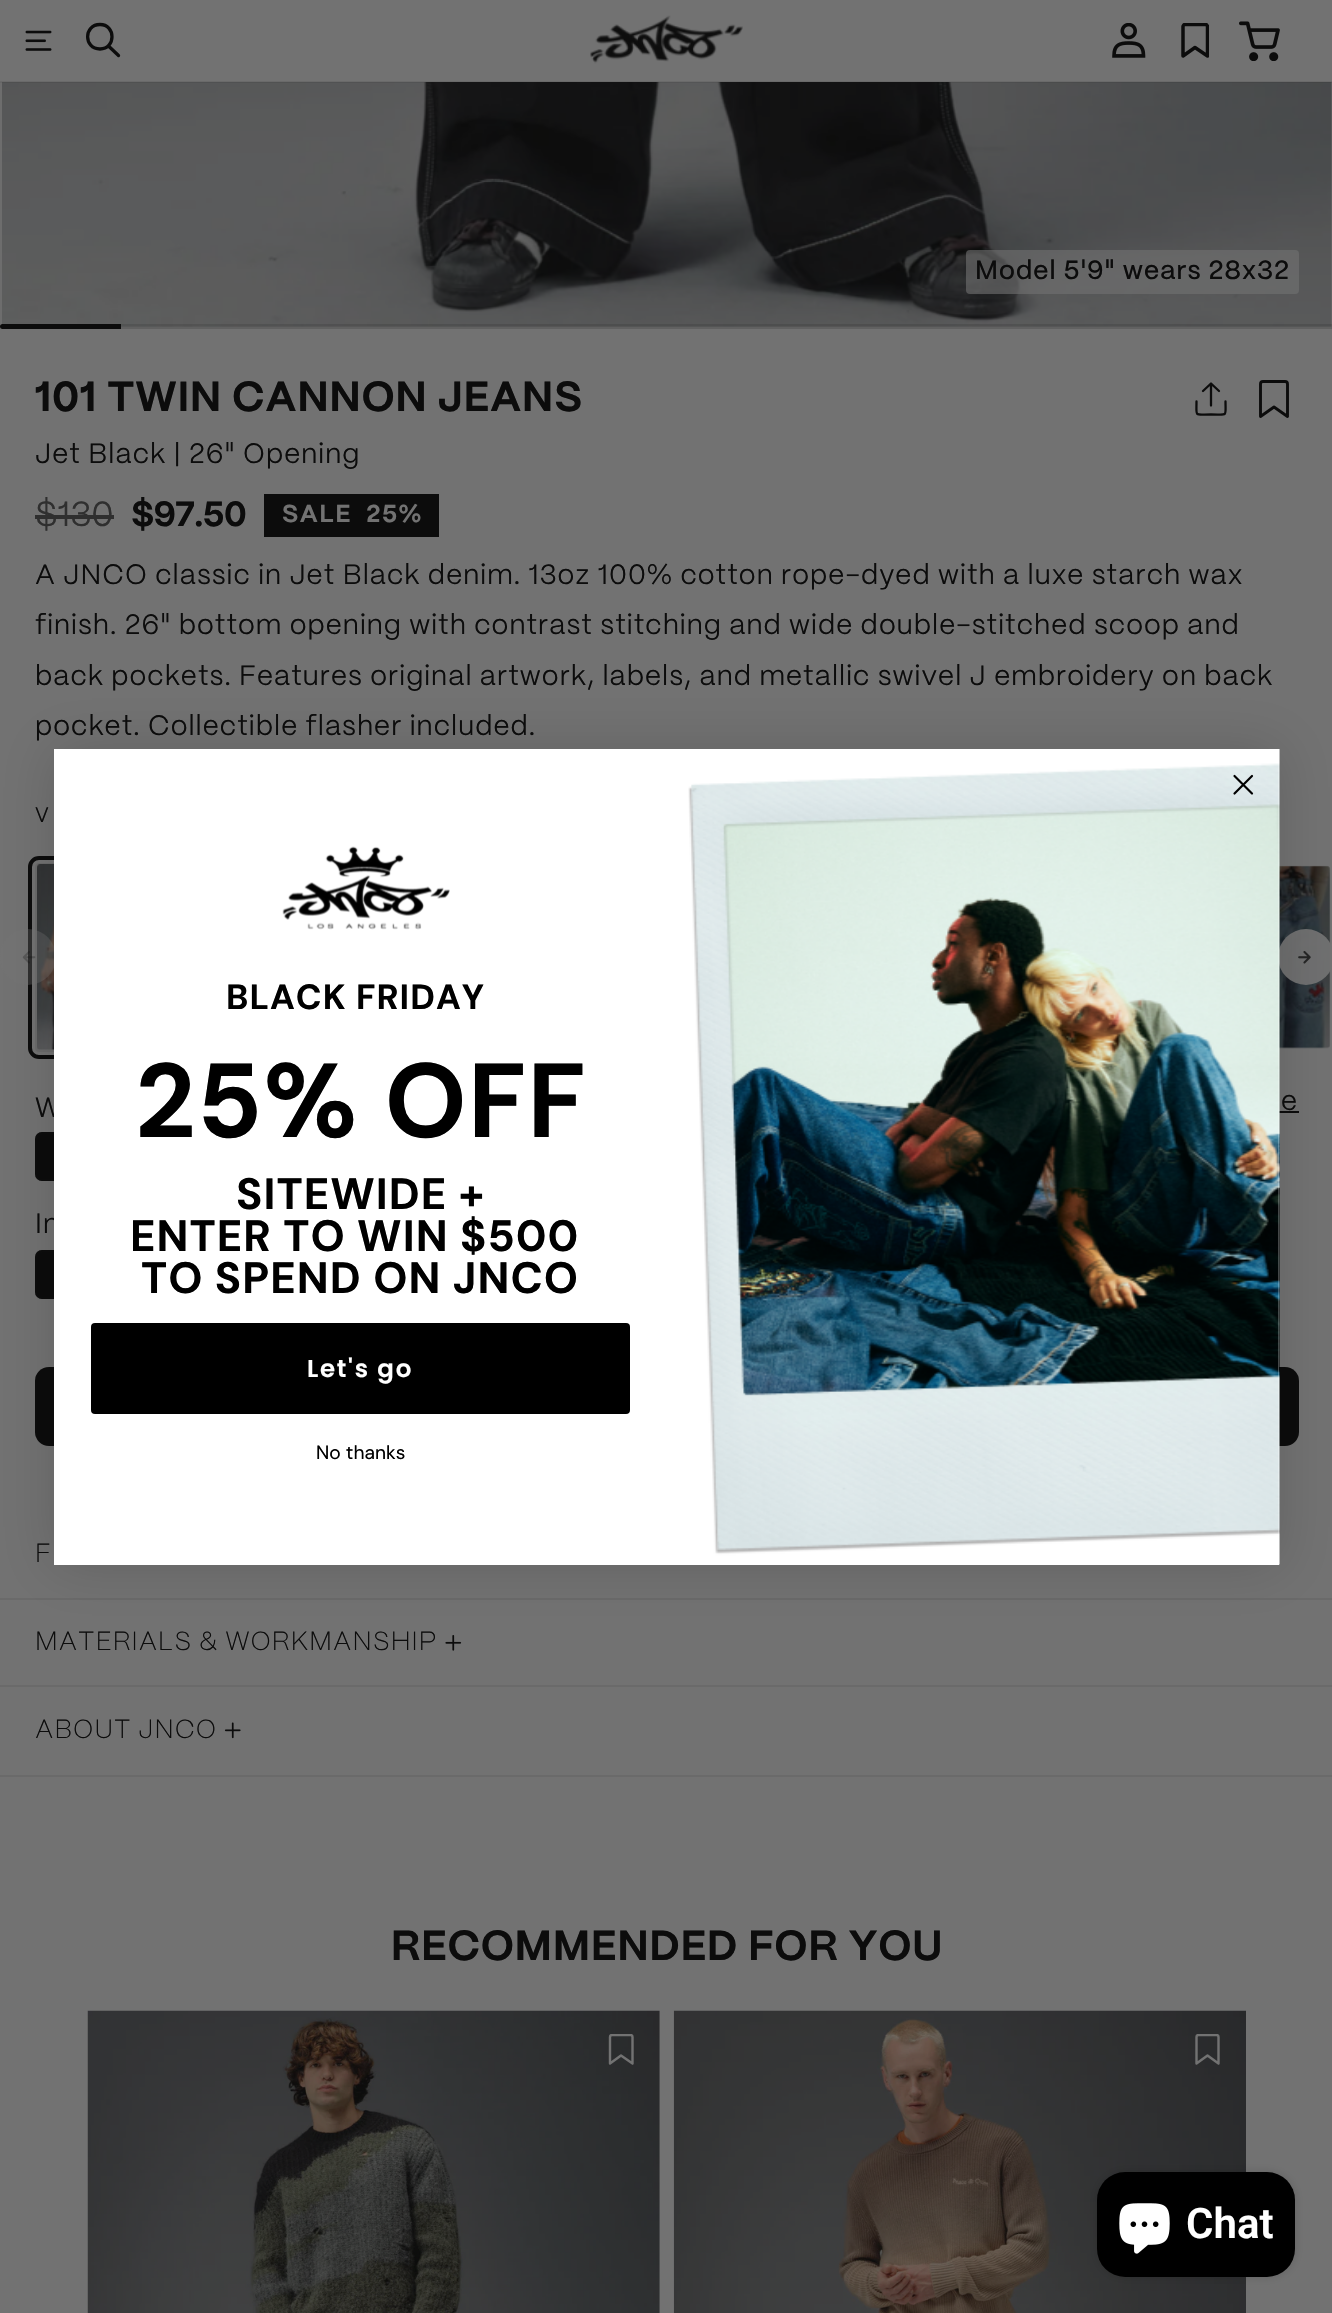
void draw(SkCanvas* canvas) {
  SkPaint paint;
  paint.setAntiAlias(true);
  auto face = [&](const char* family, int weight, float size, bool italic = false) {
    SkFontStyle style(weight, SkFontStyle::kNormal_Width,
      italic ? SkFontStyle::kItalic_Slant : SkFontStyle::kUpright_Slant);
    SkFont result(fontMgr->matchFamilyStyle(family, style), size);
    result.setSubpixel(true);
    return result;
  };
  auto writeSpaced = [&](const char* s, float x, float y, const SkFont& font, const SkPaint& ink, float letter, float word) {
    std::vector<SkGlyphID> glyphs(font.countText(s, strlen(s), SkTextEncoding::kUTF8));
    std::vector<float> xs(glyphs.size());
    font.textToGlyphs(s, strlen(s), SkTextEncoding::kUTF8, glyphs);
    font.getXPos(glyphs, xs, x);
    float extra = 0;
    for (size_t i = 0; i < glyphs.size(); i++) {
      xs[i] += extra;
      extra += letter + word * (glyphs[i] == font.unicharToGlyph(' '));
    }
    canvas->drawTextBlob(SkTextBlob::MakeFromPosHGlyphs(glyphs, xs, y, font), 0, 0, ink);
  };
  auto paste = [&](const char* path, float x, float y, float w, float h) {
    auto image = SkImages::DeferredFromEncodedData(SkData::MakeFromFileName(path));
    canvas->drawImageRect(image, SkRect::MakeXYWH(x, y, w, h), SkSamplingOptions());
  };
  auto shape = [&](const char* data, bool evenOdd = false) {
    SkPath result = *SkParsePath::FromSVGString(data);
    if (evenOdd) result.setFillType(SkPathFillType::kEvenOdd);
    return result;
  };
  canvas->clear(0xff727272);
  paint.setStroke(true);
  paint.setStrokeWidth(2);
  paint.setColor(0xff6d6d6d);
  canvas->drawRect(SkRect::MakeXYWH(1, -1, 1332, 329), paint);
  paint.setStroke(false);
  paint.setColor(0xff727272);
  canvas->drawRect(SkRect::MakeXYWH(0, 0, 2, 82), paint);
  paste("img/5.png", 2, 82, 1330, 245);
  paint.setColor(0x140c0c0c);
  canvas->drawRect(SkRect::MakeXYWH(0, 81, 1332, 2), paint);
  paste("img/1.png", 25, 30, 27, 21);
  paint.setStroke(true);
  paint.setStrokeWidth(3.3f);
  paint.setStrokeCap(SkPaint::kRound_Cap);
  paint.setColor(0xff0c0c0c);
  canvas->drawPath(shape("M100 49C116 49 116 24.5 100 24.5C83.5 24.5 83.5 49 100 49ZM109 46.5L118.5 55.5"), paint);
  paste("img/2.png", 590, 15, 153, 49);
  paste("img/3.png", 1112, 23, 34, 35);
  canvas->save();
  canvas->clipRect(SkRect::MakeXYWH(1181, 23, 28, 35));
  paint.setStrokeWidth(3.5f);
  paint.setStrokeJoin(SkPaint::kRound_Join);
  canvas->drawPath(shape("M1195 47.5L1207.5 56V26.5C1207.5 25.5 1206.5 24.5 1205.5 24.5H1185C1184 24.5 1183 25.5 1183 26.5V56Z"), paint);
  canvas->restore();
  paste("img/4.png", 1239, 21, 41, 40);
  paint.setStroke(false);
  paint.setColor(0x99727272);
  canvas->drawRoundRect(SkRect::MakeXYWH(966, 250, 333, 44), 4, 4, paint);
  paint.setColor(0x1f0c0c0c);
  canvas->drawRoundRect(SkRect::MakeXYWH(0, 324, 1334, 5), 2.5f, 2.5f, paint);
  paint.setColor(0xff0c0c0c);
  canvas->drawPath(shape("M2.5 324H121V329H2.5C1 329 0 328 0 326.5C0 325 1 324 2.5 324Z"), paint);
  paint.setStroke(true);
  paint.setStrokeWidth(2.3f);
  canvas->drawPath(shape("M1196.5 401.5C1196.5 417.5 1194 414.5 1211 414.5C1228 414.5 1225.5 417.5 1225.5 401.5M1211 405.5V384M1219 391L1211 383.5L1203 391"), paint);
  paint.setStrokeWidth(2.9f);
  canvas->drawPath(shape("M1274 407L1287.5 416.5V384C1287.5 382.5 1286.5 381.5 1285 381.5H1263C1261.5 381.5 1260.5 382.5 1260.5 384V416.5Z"), paint);
  paint.setStroke(false);
  paint.setColor(0xff2f2f2f);
  canvas->drawRect(SkRect::MakeXYWH(35, 515, 79, 4), paint);
  paint.setColor(0xff0c0c0c);
  canvas->drawRect(SkRect::MakeXYWH(264, 494, 175, 43), paint);
  paint.setColor(0xff6a6a6a);
  canvas->drawRoundRect(SkRect::MakeXYWH(35, 863, 123, 189), 4, 4, paint);
  paste("img/6.png", 37, 864, 17, 186);
  paint.setStroke(true);
  paint.setStrokeWidth(4);
  paint.setStrokeCap(SkPaint::kButt_Cap);
  paint.setStrokeJoin(SkPaint::kMiter_Join);
  paint.setColor(0xff0c0c0c);
  canvas->drawRoundRect(SkRect::MakeXYWH(30, 858, 133, 199), 9, 9, paint);
  paste("img/7.png", 1279, 865, 52, 184);
  paint.setStroke(false);
  paint.setColor(0x54727272);
  canvas->drawCircle(28, 957, 28, paint);
  paste("img/8.png", 22, 951, 14, 13);
  paint.setColor(0xf2727272);
  canvas->drawCircle(1306, 957, 28, paint);
  paste("img/9.png", 1298, 951, 13, 13);
  paint.setColor(0xff0c0c0c);
  canvas->drawRect(SkRect::MakeXYWH(1279, 1111, 20, 2), paint);
  canvas->drawRoundRect(SkRect::MakeXYWH(35, 1132, 98, 49), 7, 7, paint);
  paint.setStroke(true);
  paint.setStrokeWidth(2);
  paint.setColor(0x8c0c0c0c);
  canvas->drawRoundRect(SkRect::MakeXYWH(36, 1133, 96, 47), 6, 6, paint);
  paint.setStroke(false);
  paint.setColor(0xff0c0c0c);
  canvas->drawRoundRect(SkRect::MakeXYWH(35, 1250, 98, 49), 7, 7, paint);
  paint.setStroke(true);
  paint.setColor(0x8c0c0c0c);
  canvas->drawRoundRect(SkRect::MakeXYWH(36, 1251, 96, 47), 6, 6, paint);
  paint.setStroke(false);
  paint.setColor(0xff0c0c0c);
  canvas->drawRoundRect(SkRect::MakeXYWH(35, 1367, 1264, 79), 14, 14, paint);
  paint.setColor(0xff6a6a6a);
  canvas->drawRect(SkRect::MakeXYWH(0, 1598, 1332, 2), paint);
  canvas->drawRect(SkRect::MakeXYWH(0, 1685, 1332, 2), paint);
  paste("img/10.png", 445, 1635, 17, 16);
  canvas->drawRect(SkRect::MakeXYWH(0, 1775, 1332, 2), paint);
  paste("img/11.png", 224, 1722, 17, 17);
  paste("img/12.png", 87, 2010, 573, 303);
  canvas->save();
  canvas->clipRect(SkRect::MakeXYWH(606, 2034, 31, 31));
  paint.setStroke(true);
  paint.setStrokeWidth(2.4f);
  paint.setStrokeCap(SkPaint::kRound_Cap);
  paint.setStrokeJoin(SkPaint::kRound_Join);
  paint.setColor(0xff727272);
  canvas->drawPath(shape("M621 2055.5L632.5 2063.5V2037C632.5 2036 631.5 2035 630.5 2035H612C611 2035 610 2036 610 2037V2063.5Z"), paint);
  canvas->restore();
  paste("img/13.png", 673, 2010, 573, 303);
  canvas->save();
  canvas->clipRect(SkRect::MakeXYWH(1192, 2034, 31, 31));
  canvas->drawPath(shape("M1207.5 2055.5L1218.5 2063.5V2037C1218.5 2036 1217.5 2035 1216.5 2035H1198.5C1197.5 2035 1196.5 2036 1196.5 2037V2063.5Z"), paint);
  canvas->restore();
  paint.setStroke(false);
  paint.setColor(0x26000000);
  paint.setMaskFilter(SkMaskFilter::MakeBlur(kNormal_SkBlurStyle, 26));
  canvas->drawRect(SkRect::MakeXYWH(54, 749, 1225, 816), paint);
  paint.setMaskFilter(nullptr);
  paint.setMaskFilter(SkMaskFilter::MakeBlur(kNormal_SkBlurStyle, 4.5f));
  canvas->drawRoundRect(SkRect::MakeXYWH(1097, 2172, 198, 105), 28, 28, paint);
  paint.setMaskFilter(nullptr);
  paint.setColor(0xff000000);
  canvas->drawRoundRect(SkRect::MakeXYWH(1097, 2172, 198, 105), 28, 28, paint);
  paste("img/16.png", 1119, 2203, 51, 51);
  auto f0 = face("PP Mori", 500, 26.25f);
  paint.setColor(0xff0c0c0c);
  writeSpaced("Model 5'9\" wears 28x32", 975, 279, f0, paint, 1.05f, 0);
  auto f1 = face("PP Mori", 700, 42);
  writeSpaced("101 TWIN CANNON JEANS", 35, 411, f1, paint, 1.05f, 0);
  auto f2 = face("PP Mori", 400, 28);
  writeSpaced("Jet Black | 26\" Opening", 35, 463, f2, paint, 1.05f, 0);
  auto f3 = face("PP Mori", 400, 35);
  paint.setColor(0xff2f2f2f);
  canvas->drawString("$130", 35, 526, f3, paint);
  auto f4 = face("PP Mori", 700, 35);
  paint.setColor(0xff0c0c0c);
  canvas->drawString("$97.50", 131, 526, f4, paint);
  auto f5 = face("PP Mori", 700, 24.5f);
  paint.setColor(0xff727272);
  writeSpaced("SALE  25%", 282, 522, f5, paint, 1.75f, 0);
  paint.setColor(0xff0c0c0c);
  {
    const struct { const char* s; float x, y; } items[] = {
      {"A JNCO classic in Jet Black denim. 13oz 100% cotton rope-dyed with a luxe starch wax", 35, 584},
      {"finish. 26\" bottom opening with contrast stitching and wide double-stitched scoop and", 35, 634},
      {"back pockets. Features original artwork, labels, and metallic swivel J embroidery on back", 35, 685},
      {"pocket. Collectible flasher included.", 35, 735},
    };
    for (auto [s, x, y] : items) {
      writeSpaced(s, x, y, f2, paint, 1.05f, 0);
    }
  }
  auto f6 = face("PP Mori", 400, 21);
  writeSpaced("V", 35, 822, f6, paint, 1.05f, 0);
  writeSpaced("e", 1281, 1110, f2, paint, 1.05f, 0);
  writeSpaced("W", 35, 1117, f2, paint, 1, 0);
  writeSpaced("In", 35, 1233, f2, paint, 1, 0);
  auto f7 = face("PP Mori", 200, 26.25f);
  {
    const struct { const char* s; float x, y; } items[] = {
      {"F", 35, 1562},
      {"MATERIALS & WORKMANSHIP", 35, 1650},
      {"ABOUT JNCO", 35, 1738},
    };
    for (auto [s, x, y] : items) {
      writeSpaced(s, x, y, f7, paint, 1.05f, 0);
    }
  }
  writeSpaced("RECOMMENDED FOR YOU", 391, 1960, f1, paint, 1.05f, 0);
  paint.setColor(0xffffffff);
  canvas->drawRect(SkRect::MakeXYWH(54, 749, 1225, 816), paint);
  paste("img/14.png", 282, 846, 168, 84);
  auto f8 = face("DM Sans", 700, 35);
  paint.setColor(0xff000000);
  writeSpaced("BLACK FRIDAY", 226, 1009, f8, paint, 1.05f, 0);
  auto f9 = face("DM Sans", 700, 105);
  writeSpaced("25% OFF", 135, 1137, f9, paint, 1.05f, 0);
  auto f10 = face("DM Sans", 700, 43.75f);
  {
    const struct { const char* s; float x, y; } items[] = {
      {"SITEWIDE +", 236, 1209},
      {"ENTER TO WIN $500", 130, 1251},
      {"TO SPEND ON JNCO", 141, 1293},
    };
    for (auto [s, x, y] : items) {
      writeSpaced(s, x, y, f10, paint, 1.05f, 0);
    }
  }
  canvas->drawRoundRect(SkRect::MakeXYWH(91, 1323, 539, 91), 4, 4, paint);
  auto f11 = face("Poppins", 600, 24.5f);
  paint.setColor(0xffffffff);
  writeSpaced("Let's go", 307, 1377, f11, paint, 1.75f, 0);
  auto f12 = face("DM Sans", 400, 19.25f);
  paint.setColor(0xff000000);
  canvas->drawString("No thanks", 316, 1459, f12, paint);
  paste("img/15.png", 688, 749, 592, 816);
  paint.setStroke(true);
  paint.setStrokeWidth(2.2f);
  canvas->drawPath(shape("M1234.5 776L1252 793.5M1234.5 793.5L1252 776Z"), paint);
  auto f13 = face("Roboto", 600, 42);
  paint.setStroke(false);
  paint.setColor(0xffffffff);
  canvas->drawString("Chat", 1186, 2238, f13, paint);
}
